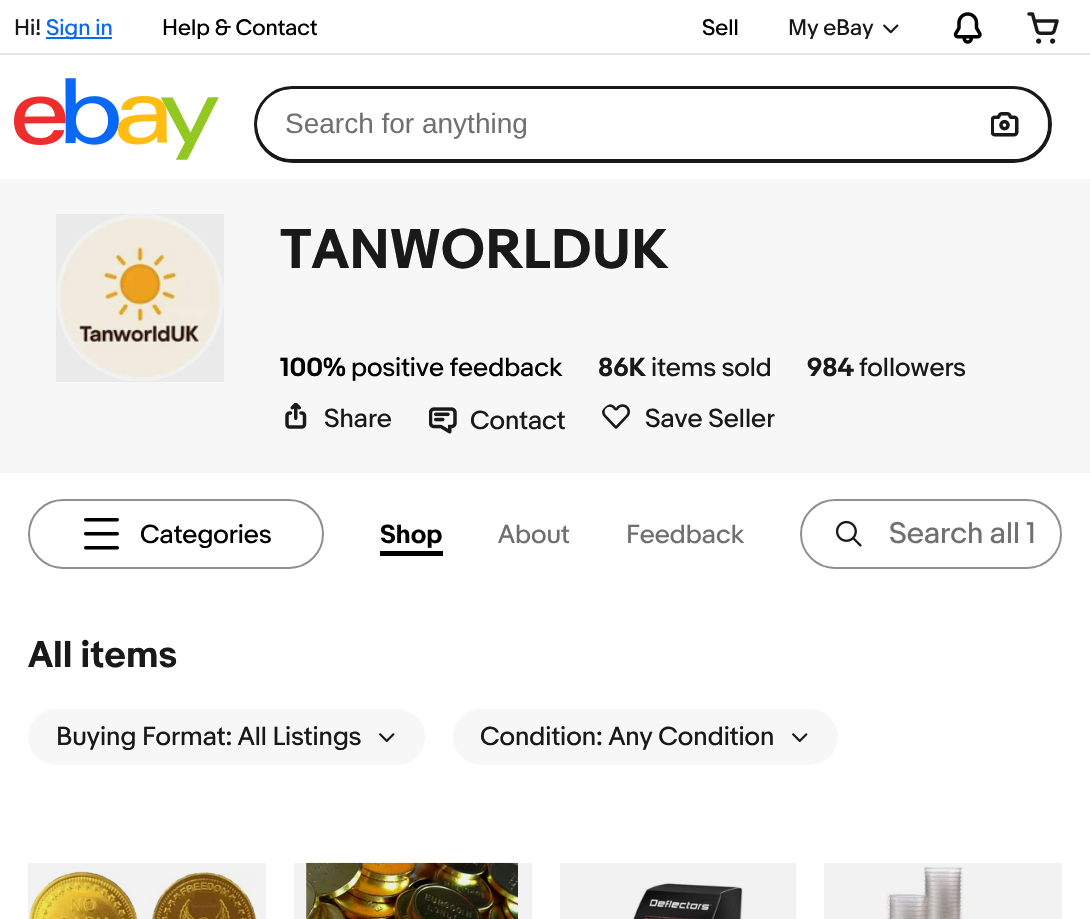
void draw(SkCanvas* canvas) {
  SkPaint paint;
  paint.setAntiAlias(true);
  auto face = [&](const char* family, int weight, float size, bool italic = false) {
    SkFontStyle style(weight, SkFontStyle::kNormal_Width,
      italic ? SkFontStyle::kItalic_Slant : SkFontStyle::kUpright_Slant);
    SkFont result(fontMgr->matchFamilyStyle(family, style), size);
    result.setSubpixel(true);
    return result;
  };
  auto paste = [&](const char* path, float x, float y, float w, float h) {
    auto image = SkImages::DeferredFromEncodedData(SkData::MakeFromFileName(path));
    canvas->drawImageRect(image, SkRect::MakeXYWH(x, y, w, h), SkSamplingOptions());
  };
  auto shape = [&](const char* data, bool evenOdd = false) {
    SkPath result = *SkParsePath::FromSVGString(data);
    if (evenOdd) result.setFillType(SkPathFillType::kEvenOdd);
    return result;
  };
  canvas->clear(0xffffffff);
  paint.setColor(0xff0968f6);
  canvas->drawRect(SkRect::MakeXYWH(46, 37, 66, 2), paint);
  paste("img/1.png", 883, 24, 16, 10);
  paste("img/2.png", 953, 12, 29, 32);
  paste("img/3.png", 1027, 12, 32, 32);
  paste("img/4.png", 14, 78, 205, 82);
  paint.setStroke(true);
  paint.setStrokeWidth(4);
  paint.setColor(0xff191919);
  canvas->drawRoundRect(SkRect::MakeXYWH(256, 88, 794, 73), 36.5f, 36.5f, paint);
  canvas->save();
  canvas->clipPath(shape("M292 89H1013C1032.5 89 1048 104.5 1048 124C1048 143.5 1032.5 159 1013 159H292C272.5 159 257 143.5 257 124C257 104.5 272.5 89 292 89Z"), true);
  paint.setStroke(false);
  paint.setColor(0xffe5e5e5);
  canvas->drawRect(SkRect::MakeXYWH(1047, 116, 1, 16), paint);
  paint.setColor(0xffffffff);
  canvas->drawPath(shape("M292 89H1047V159H292C272.5 159 257 143.5 257 124C257 104.5 272.5 89 292 89Z"), paint);
  canvas->restore();
  paste("img/5.png", 991, 112, 28, 25);
  paint.setColor(0xffe5e5e5);
  canvas->drawRect(SkRect::MakeXYWH(0, 53, 1090, 2), paint);
  paint.setColor(0xfff7f7f7);
  canvas->drawRect(SkRect::MakeXYWH(0, 179, 1090, 294), paint);
  paste("img/6.png", 56, 214, 168, 167);
  paint.setColor(0x0d000000);
  canvas->drawRect(SkRect::MakeXYWH(56, 214, 168, 168), paint);
  paste("img/7.png", 285, 403, 22, 26);
  paste("img/8.png", 429, 407, 28, 27);
  paste("img/9.png", 602, 404, 28, 25);
  paint.setStroke(true);
  paint.setStrokeWidth(2);
  paint.setColor(0xff8f8f8f);
  canvas->drawRoundRect(SkRect::MakeXYWH(29, 500, 294, 68), 34, 34, paint);
  paste("img/10.png", 84, 518, 35, 32);
  paint.setStroke(false);
  paint.setColor(0xff000000);
  canvas->drawRect(SkRect::MakeXYWH(380, 551, 63, 5), paint);
  paint.setStroke(true);
  paint.setColor(0xff8f8f8f);
  canvas->drawRoundRect(SkRect::MakeXYWH(801, 500, 260, 68), 34, 34, paint);
  paste("img/11.png", 835, 520, 27, 27);
  paint.setStroke(false);
  paint.setColor(0xfff7f7f7);
  canvas->drawRoundRect(SkRect::MakeXYWH(28, 709, 397, 56), 28, 28, paint);
  paste("img/12.png", 379, 733, 16, 9);
  canvas->drawRoundRect(SkRect::MakeXYWH(453, 709, 385, 56), 28, 28, paint);
  paste("img/12.png", 792, 733, 16, 9);
  paste("img/13.png", 28, 871, 229, 48);
  paint.setColor(0x0d000000);
  canvas->drawRect(SkRect::MakeXYWH(28, 863, 238, 56), paint);
  paste("img/14.png", 306, 862, 212, 57);
  canvas->drawRect(SkRect::MakeXYWH(294, 863, 238, 56), paint);
  paste("img/15.png", 632, 882, 111, 37);
  canvas->drawRect(SkRect::MakeXYWH(560, 863, 236, 56), paint);
  paste("img/16.png", 886, 866, 79, 53);
  canvas->drawRect(SkRect::MakeXYWH(824, 863, 238, 56), paint);
  auto f0 = face("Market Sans", 400, 21);
  paint.setColor(0xff191919);
  canvas->drawString("Hi!", 14, 35, f0, paint);
  paint.setColor(0xff0968f6);
  canvas->drawString("Sign in", 46, 35, f0, paint);
  paint.setColor(0xff000000);
  canvas->drawString("Help & Contact", 162, 35, f0, paint);
  canvas->drawString("Sell", 702, 35, f0, paint);
  paint.setColor(0xff191919);
  canvas->drawString("My eBay", 788, 35, f0, paint);
  auto f1 = face("Liberation Sans", 400, 28);
  paint.setColor(0xff707070);
  canvas->drawString("Search for anything", 285, 133, f1, paint);
  auto f2 = face("Market Sans", 700, 52.5f);
  paint.setColor(0xff191919);
  canvas->drawString("TANWORLDUK", 280, 268, f2, paint);
  auto f3 = face("Market Sans", 700, 24.5f);
  paint.setColor(0xff000000);
  canvas->drawString("100%", 280, 376, f3, paint);
  auto f4 = face("Market Sans", 400, 24.5f);
  canvas->drawString("positive feedback", 351, 376, f4, paint);
  paint.setColor(0xff191919);
  canvas->drawString("86K", 598, 376, f3, paint);
  canvas->drawString("items sold", 651, 376, f4, paint);
  canvas->drawString("984", 807, 376, f3, paint);
  {
    const struct { const char* s; float x, y; } items[] = {
      {"followers", 859, 376},
      {"Share", 324, 427},
      {"Contact", 470, 429},
    };
    for (auto [s, x, y] : items) {
      canvas->drawString(s, x, y, f4, paint);
    }
  }
  canvas->save();
  canvas->clipPath(shape("M615.5 403H759.5C768 403 775 410 775 418.5C775 427 768 434 759.5 434H615.5C607 434 600 427 600 418.5C600 410 607 403 615.5 403Z"), true);
  canvas->drawString("Save Seller", 645, 427, f4, paint);
  canvas->restore();
  paint.setColor(0xff000000);
  canvas->drawString("Categories", 140, 543, f4, paint);
  canvas->drawString("Shop", 380, 543, f3, paint);
  paint.setColor(0xff707070);
  canvas->drawString("About", 498, 543, f4, paint);
  canvas->drawString("Feedback", 626, 543, f4, paint);
  auto f5 = face("Market Sans", 400, 28);
  canvas->drawString("Search all 1", 889, 543, f5, paint);
  auto f6 = face("Market Sans", 700, 35);
  paint.setColor(0xff191919);
  canvas->drawString("All items", 28, 667, f6, paint);
  canvas->drawString("Buying Format: All Listings", 56, 745, f4, paint);
  canvas->drawString("Condition: Any Condition", 480, 745, f4, paint);
}
